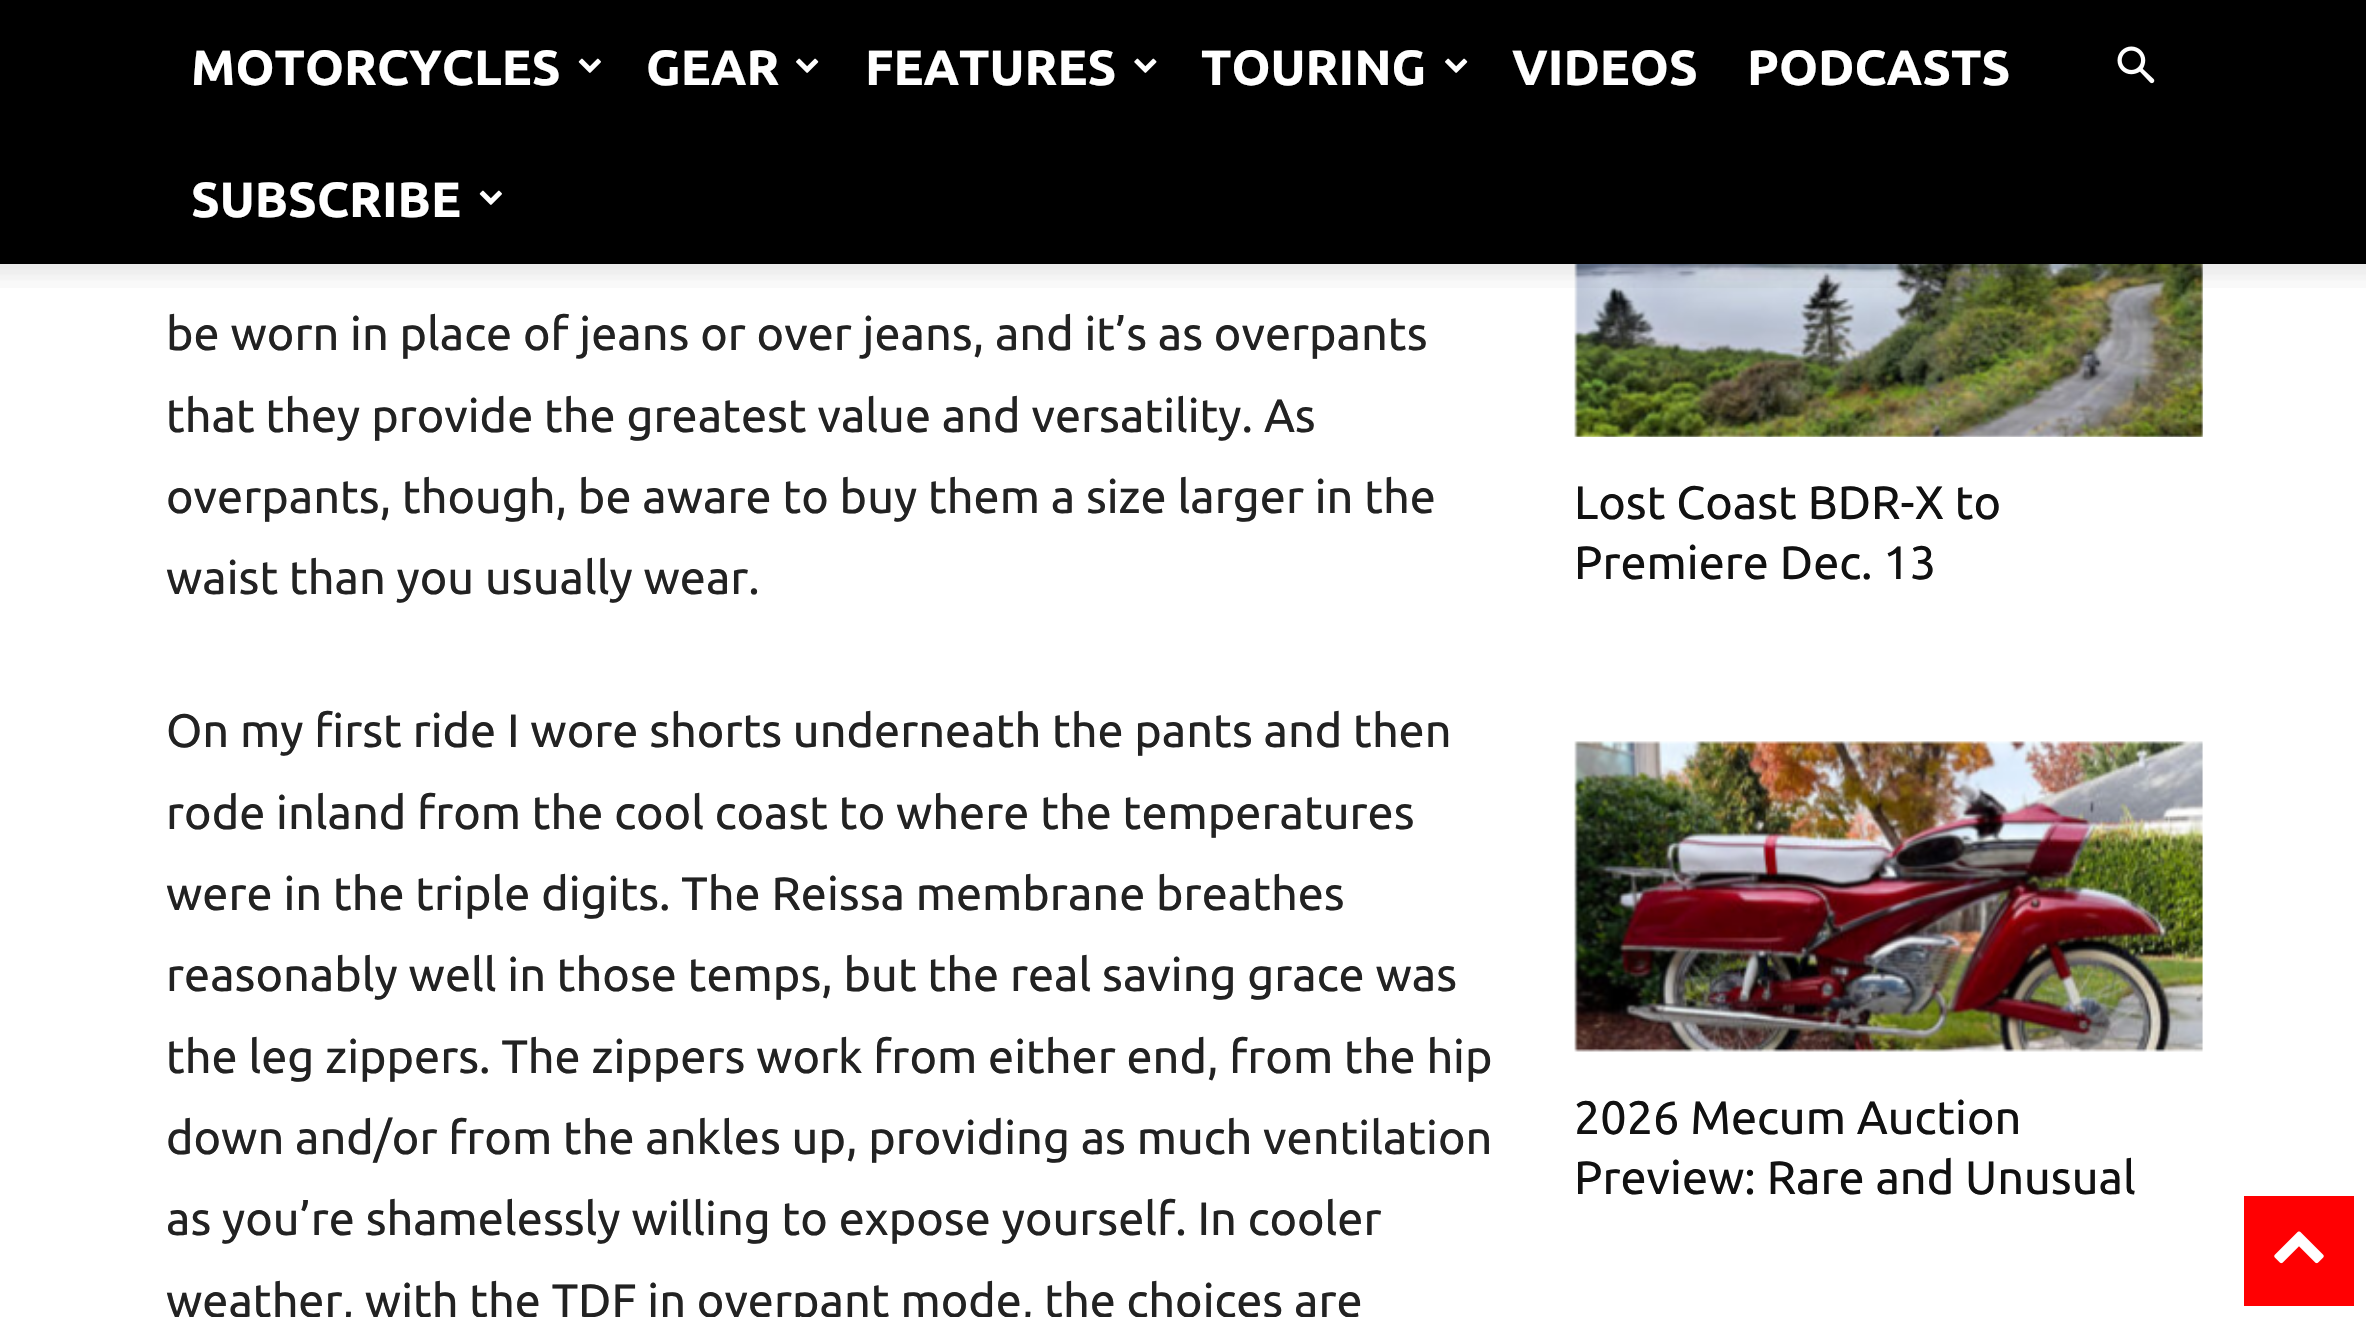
void draw(SkCanvas* canvas) {
  SkPaint paint;
  paint.setAntiAlias(true);
  auto face = [&](const char* family, int weight, float size, bool italic = false) {
    SkFontStyle style(weight, SkFontStyle::kNormal_Width,
      italic ? SkFontStyle::kItalic_Slant : SkFontStyle::kUpright_Slant);
    SkFont result(fontMgr->matchFamilyStyle(family, style), size);
    result.setSubpixel(true);
    return result;
  };
  auto paste = [&](const char* path, float x, float y, float w, float h) {
    auto image = SkImages::DeferredFromEncodedData(SkData::MakeFromFileName(path));
    canvas->drawImageRect(image, SkRect::MakeXYWH(x, y, w, h), SkSamplingOptions());
  };
  canvas->clear(0xffffffff);
  paint.setColor(0xff000000);
  canvas->drawRect(SkRect::MakeXYWH(0, 0, 2366, 264), paint);
  paste("img/1.png", 578, 58, 23, 15);
  paste("img/2.png", 796, 58, 23, 15);
  paste("img/3.png", 1134, 58, 23, 15);
  paste("img/2.png", 1445, 58, 23, 15);
  paste("img/1.png", 479, 190, 23, 15);
  paste("img/4.png", 2117, 46, 38, 38);
  paste("img/6.png", 1574, 264, 629, 173);
  paste("img/5.png", 0, 264, 2366, 24);
  paste("img/7.png", 1574, 741, 629, 311);
  paint.setColor(0xffff0002);
  canvas->drawRect(SkRect::MakeXYWH(2244, 1196, 110, 110), paint);
  paste("img/8.png", 2274, 1231, 50, 33);
  auto f0 = face("Ubuntu", 700, 49.5f);
  paint.setColor(0xffffffff);
  {
    const struct { const char* s; float x, y; } items[] = {
      {"MOTORCYCLES", 191, 85},
      {"GEAR", 646, 85},
      {"FEATURES", 865, 85},
      {"TOURING", 1201, 85},
      {"VIDEOS", 1512, 85},
      {"PODCASTS", 1747, 85},
      {"SUBSCRIBE", 191, 217},
    };
    for (auto [s, x, y] : items) {
      canvas->drawString(s, x, y, f0, paint);
    }
  }
  auto f1 = face("Ubuntu", 400, 46.75f);
  paint.setColor(0xff222222);
  {
    const struct { const char* s; float x, y; } items[] = {
      {"be worn in place of jeans or over jeans, and it’s as overpants", 166, 350},
      {"that they provide the greatest value and versatility. As", 166, 432},
      {"overpants, though, be aware to buy them a size larger in the", 166, 513},
      {"waist than you usually wear.", 166, 594},
      {"On my first ride I wore shorts underneath the pants and then", 166, 747},
      {"rode inland from the cool coast to where the temperatures", 166, 829},
      {"were in the triple digits. The Reissa membrane breathes", 166, 910},
      {"reasonably well in those temps, but the real saving grace was", 166, 991},
      {"the leg zippers. The zippers work from either end, from the hip", 166, 1073},
      {"down and/or from the ankles up, providing as much ventilation", 166, 1154},
      {"as you’re shamelessly willing to expose yourself. In cooler", 166, 1235},
      {"weather, with the TDF in overpant mode, the choices are", 166, 1317},
    };
    for (auto [s, x, y] : items) {
      canvas->drawString(s, x, y, f1, paint);
    }
  }
  paint.setColor(0xff111111);
  {
    const struct { const char* s; float x, y; } items[] = {
      {"Lost Coast BDR-X to", 1574, 519},
      {"Premiere Dec. 13", 1574, 579},
      {"2026 Mecum Auction", 1574, 1134},
      {"Preview: Rare and Unusual", 1574, 1194},
    };
    for (auto [s, x, y] : items) {
      canvas->drawString(s, x, y, f1, paint);
    }
  }
}
